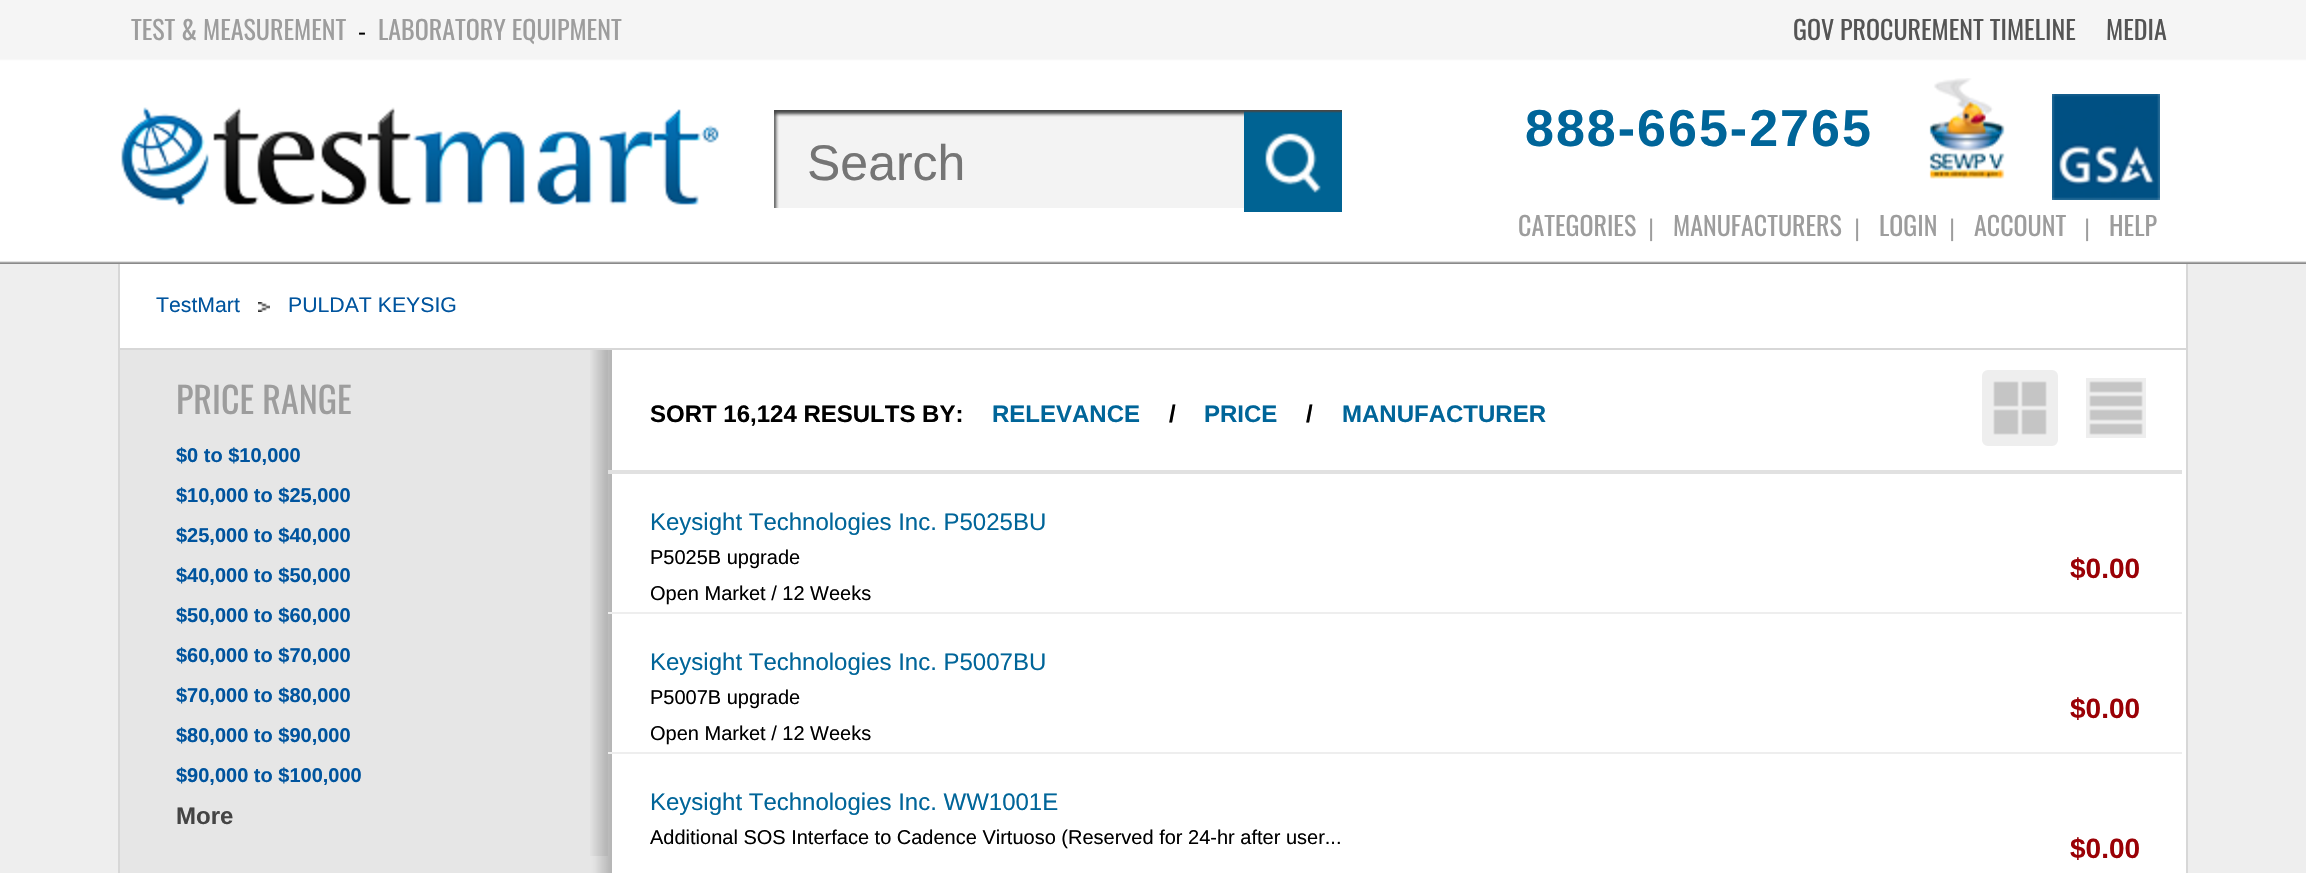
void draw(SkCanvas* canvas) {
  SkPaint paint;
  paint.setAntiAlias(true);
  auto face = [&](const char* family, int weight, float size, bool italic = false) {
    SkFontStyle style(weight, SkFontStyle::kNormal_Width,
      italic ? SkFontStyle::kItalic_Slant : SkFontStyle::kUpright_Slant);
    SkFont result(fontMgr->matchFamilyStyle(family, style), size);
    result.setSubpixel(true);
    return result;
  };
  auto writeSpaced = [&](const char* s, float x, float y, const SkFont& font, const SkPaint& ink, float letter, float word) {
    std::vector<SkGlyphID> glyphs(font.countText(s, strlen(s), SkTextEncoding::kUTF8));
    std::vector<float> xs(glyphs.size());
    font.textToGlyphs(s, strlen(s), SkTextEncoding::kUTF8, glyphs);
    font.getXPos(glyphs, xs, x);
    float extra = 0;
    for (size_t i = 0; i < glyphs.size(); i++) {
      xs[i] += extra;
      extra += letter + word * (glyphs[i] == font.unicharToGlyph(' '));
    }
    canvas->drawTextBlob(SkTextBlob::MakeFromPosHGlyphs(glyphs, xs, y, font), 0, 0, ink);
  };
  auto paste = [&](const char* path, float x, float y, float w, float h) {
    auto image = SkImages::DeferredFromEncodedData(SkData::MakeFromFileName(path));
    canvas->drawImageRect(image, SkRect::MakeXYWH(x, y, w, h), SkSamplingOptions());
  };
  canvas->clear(0xffeeeeee);
  paint.setColor(0xffffffff);
  canvas->drawRect(SkRect::MakeXYWH(612, 350, 1574, 523), paint);
  paste("img/1.png", 120, 350, 492, 523);
  paint.setStroke(true);
  paint.setStrokeWidth(2);
  paint.setColor(0xffd7d7d7);
  canvas->drawRect(SkRect::MakeXYWH(119, 219, 2068, 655), paint);
  paste("img/2.png", 0, 0, 2306, 264);
  paste("img/3.png", 121, 107, 598, 100);
  paste("img/4.png", 774, 110, 470, 98);
  paste("img/5.png", 1244, 110, 98, 102);
  paste("img/6.png", 1929, 78, 76, 101);
  paste("img/7.png", 2052, 94, 108, 106);
  paint.setStroke(false);
  paint.setColor(0xffffffff);
  canvas->drawRect(SkRect::MakeXYWH(120, 264, 2066, 84), paint);
  paint.setColor(0xffd7d7d7);
  canvas->drawRect(SkRect::MakeXYWH(120, 348, 2066, 2), paint);
  paste("img/8.png", 258, 302, 12, 10);
  paste("img/9.png", 590, 350, 18, 506);
  paint.setColor(0xffe1e1e1);
  canvas->drawRect(SkRect::MakeXYWH(608, 470, 1574, 4), paint);
  paste("img/10.png", 1990, 378, 60, 60);
  paint.setStroke(true);
  paint.setStrokeWidth(8);
  paint.setColor(0xffeeeeee);
  canvas->drawRoundRect(SkRect::MakeXYWH(1986, 374, 68, 68), 2, 2, paint);
  paste("img/11.png", 2086, 378, 60, 60);
  paint.setStroke(false);
  canvas->drawRect(SkRect::MakeXYWH(608, 612, 1574, 2), paint);
  canvas->drawRect(SkRect::MakeXYWH(608, 752, 1574, 2), paint);
  auto f0 = face("Oswald", 400, 26);
  paint.setColor(0xff9d9d9d);
  canvas->drawString("TEST & MEASUREMENT", 131, 40, f0, paint);
  auto f1 = face("Liberation Sans", 400, 24);
  paint.setColor(0xff000000);
  canvas->drawString("-", 358, 40, f1, paint);
  paint.setColor(0xff9d9d9d);
  canvas->drawString("LABORATORY EQUIPMENT", 378, 40, f0, paint);
  paint.setColor(0xff545454);
  canvas->drawString("GOV PROCUREMENT TIMELINE", 1793, 40, f0, paint);
  canvas->drawString("MEDIA", 2106, 40, f0, paint);
  auto f2 = face("Liberation Sans", 400, 50);
  paint.setColor(0xff757575);
  canvas->drawString("Search", 807, 180, f2, paint);
  auto f3 = face("Liberation Sans", 700, 52);
  paint.setColor(0xff006599);
  writeSpaced("888-665-2765", 1525, 146, f3, paint, 2, 0);
  paint.setColor(0xff9d9d9d);
  canvas->drawString("CATEGORIES", 1518, 236, f0, paint);
  canvas->drawString("|", 1648, 236, f1, paint);
  canvas->drawString("MANUFACTURERS", 1673, 236, f0, paint);
  canvas->drawString("|", 1854, 236, f1, paint);
  canvas->drawString("LOGIN", 1879, 236, f0, paint);
  canvas->drawString("|", 1949, 236, f1, paint);
  canvas->drawString("ACCOUNT", 1974, 236, f0, paint);
  canvas->drawString("|", 2084, 236, f1, paint);
  canvas->drawString("HELP", 2109, 236, f0, paint);
  auto f4 = face("Liberation Sans", 400, 21.25f);
  paint.setColor(0xff00549e);
  canvas->drawString("TestMart", 156, 312, f4, paint);
  canvas->drawString("PULDAT KEYSIG", 288, 312, f4, paint);
  auto f5 = face("Oswald", 400, 36);
  paint.setColor(0xff9d9d9d);
  canvas->drawString("PRICE RANGE", 176, 414, f5, paint);
  auto f6 = face("Liberation Sans", 700, 20);
  paint.setColor(0xff00549e);
  {
    const struct { const char* s; float x, y; } items[] = {
      {"$0 to $10,000", 176, 462},
      {"$10,000 to $25,000", 176, 502},
      {"$25,000 to $40,000", 176, 542},
      {"$40,000 to $50,000", 176, 582},
      {"$50,000 to $60,000", 176, 622},
      {"$60,000 to $70,000", 176, 662},
      {"$70,000 to $80,000", 176, 702},
      {"$80,000 to $90,000", 176, 742},
      {"$90,000 to $100,000", 176, 782},
    };
    for (auto [s, x, y] : items) {
      canvas->drawString(s, x, y, f6, paint);
    }
  }
  auto f7 = face("Liberation Sans", 700, 24);
  paint.setColor(0xff444444);
  canvas->drawString("More", 176, 824, f7, paint);
  paint.setColor(0xff000000);
  canvas->drawString("SORT 16,124 RESULTS BY:", 650, 422, f7, paint);
  paint.setColor(0xff006599);
  canvas->drawString("RELEVANCE", 992, 422, f7, paint);
  paint.setColor(0xff000000);
  canvas->drawString("/", 1169, 422, f7, paint);
  paint.setColor(0xff006599);
  canvas->drawString("PRICE", 1204, 422, f7, paint);
  paint.setColor(0xff000000);
  canvas->drawString("/", 1306, 422, f7, paint);
  paint.setColor(0xff006599);
  canvas->drawString("MANUFACTURER", 1342, 422, f7, paint);
  canvas->drawString("Keysight Technologies Inc. P5025BU", 650, 530, f1, paint);
  auto f8 = face("Liberation Sans", 400, 20);
  paint.setColor(0xff000000);
  canvas->drawString("P5025B upgrade", 650, 564, f8, paint);
  canvas->drawString("Open Market / 12 Weeks", 650, 600, f8, paint);
  auto f9 = face("Liberation Sans", 700, 28);
  paint.setColor(0xff9a0106);
  canvas->drawString("$0.00", 2070, 578, f9, paint);
  paint.setColor(0xff006599);
  canvas->drawString("Keysight Technologies Inc. P5007BU", 650, 670, f1, paint);
  paint.setColor(0xff000000);
  canvas->drawString("P5007B upgrade", 650, 704, f8, paint);
  canvas->drawString("Open Market / 12 Weeks", 650, 740, f8, paint);
  paint.setColor(0xff9a0106);
  canvas->drawString("$0.00", 2070, 718, f9, paint);
  paint.setColor(0xff006599);
  canvas->drawString("Keysight Technologies Inc. WW1001E", 650, 810, f1, paint);
  paint.setColor(0xff000000);
  canvas->drawString("Additional SOS Interface to Cadence Virtuoso (Reserved for 24-hr after user...", 650, 844, f8, paint);
  paint.setColor(0xff9a0106);
  canvas->drawString("$0.00", 2070, 858, f9, paint);
}
